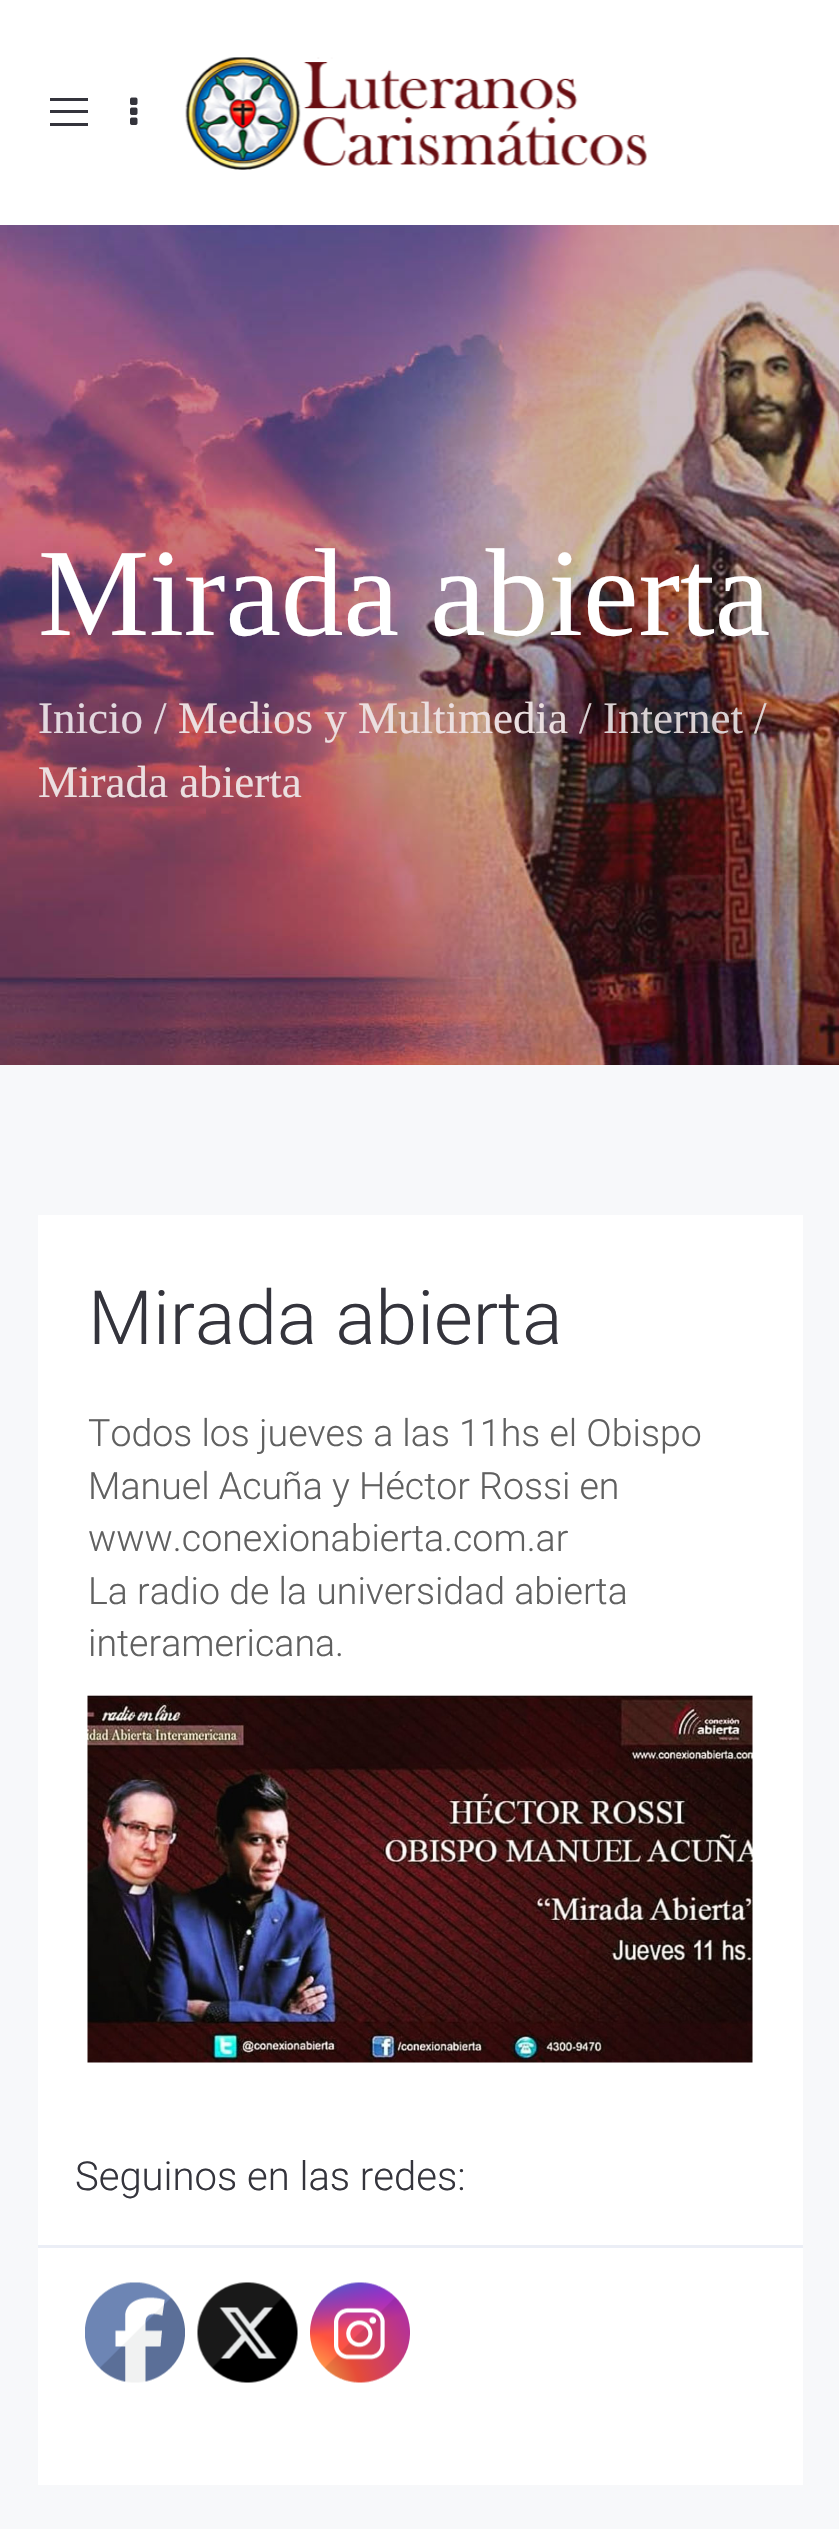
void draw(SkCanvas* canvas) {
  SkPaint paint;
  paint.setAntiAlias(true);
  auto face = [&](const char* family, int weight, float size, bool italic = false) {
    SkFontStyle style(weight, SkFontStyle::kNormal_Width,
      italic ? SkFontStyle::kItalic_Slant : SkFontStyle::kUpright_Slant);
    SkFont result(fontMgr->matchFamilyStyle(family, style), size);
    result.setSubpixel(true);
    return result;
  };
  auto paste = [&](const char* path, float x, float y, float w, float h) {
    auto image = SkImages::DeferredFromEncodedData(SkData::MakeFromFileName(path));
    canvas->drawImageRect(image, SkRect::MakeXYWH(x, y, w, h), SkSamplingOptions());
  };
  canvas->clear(0xffffffff);
  {
    const struct { float x, y, w, h; SkColor color; } items[] = {
      {50, 123, 38, 3, 0xff34343c},
      {50, 98, 38, 3, 0xff34343c},
      {50, 110, 38, 3, 0xff34343c},
    };
    for (auto [x, y, w, h, color] : items) {
      paint.setColor(color);
      canvas->drawRect(SkRect::MakeXYWH(x, y, w, h), paint);
    }
  }
  paste("img/1.png", 130, 97, 8, 28);
  paste("img/2.png", 185, 57, 462, 113);
  paste("img/3.png", 0, 225, 839, 840);
  paint.setColor(0xfff7f8fa);
  canvas->drawRect(SkRect::MakeXYWH(0, 1065, 839, 1464), paint);
  paint.setColor(0xffffffff);
  canvas->drawRect(SkRect::MakeXYWH(38, 1215, 765, 1270), paint);
  paste("img/4.png", 87, 1695, 666, 368);
  paint.setColor(0xffebeef6);
  canvas->drawRect(SkRect::MakeXYWH(38, 2245, 765, 3), paint);
  paste("img/5.png", 85, 2282, 100, 101);
  paste("img/6.png", 197, 2282, 101, 101);
  paste("img/7.png", 310, 2282, 100, 101);
  auto f0 = face("Liberation Serif", 400, 125);
  paint.setColor(0xffffffff);
  canvas->drawString("Mirada abierta", 38, 635, f0, paint);
  auto f1 = face("Liberation Serif", 400, 45);
  paint.setColor(0xffe3d8df);
  canvas->drawString("Inicio", 38, 733, f1, paint);
  canvas->drawString("/", 154, 733, f1, paint);
  paint.setColor(0xffebdfe0);
  canvas->drawString("Medios y Multimedia", 178, 733, f1, paint);
  paint.setColor(0xffdad2d4);
  canvas->drawString("/", 579, 733, f1, paint);
  canvas->drawString("Internet", 603, 733, f1, paint);
  paint.setColor(0xffe1d7d5);
  canvas->drawString("/", 754, 733, f1, paint);
  paint.setColor(0xffebdfe0);
  canvas->drawString("Mirada abierta", 38, 797, f1, paint);
  auto f2 = face("Roboto", 300, 75);
  paint.setColor(0xff34343c);
  canvas->drawString("Mirada abierta", 88, 1344, f2, paint);
  auto f3 = face("Roboto", 300, 37.5f);
  paint.setColor(0xff606060);
  {
    const struct { const char* s; float x, y; } items[] = {
      {"Todos los jueves a las 11hs el Obispo", 88, 1446},
      {"Manuel Acuña y Héctor Rossi en", 88, 1499},
      {"www.conexionabierta.com.ar", 88, 1551},
      {"La radio de la universidad abierta", 88, 1604},
      {"interamericana.", 88, 1656},
    };
    for (auto [s, x, y] : items) {
      canvas->drawString(s, x, y, f3, paint);
    }
  }
  auto f4 = face("Roboto", 300, 40);
  paint.setColor(0xff34343c);
  canvas->drawString("Seguinos en las redes:", 75, 2190, f4, paint);
}
